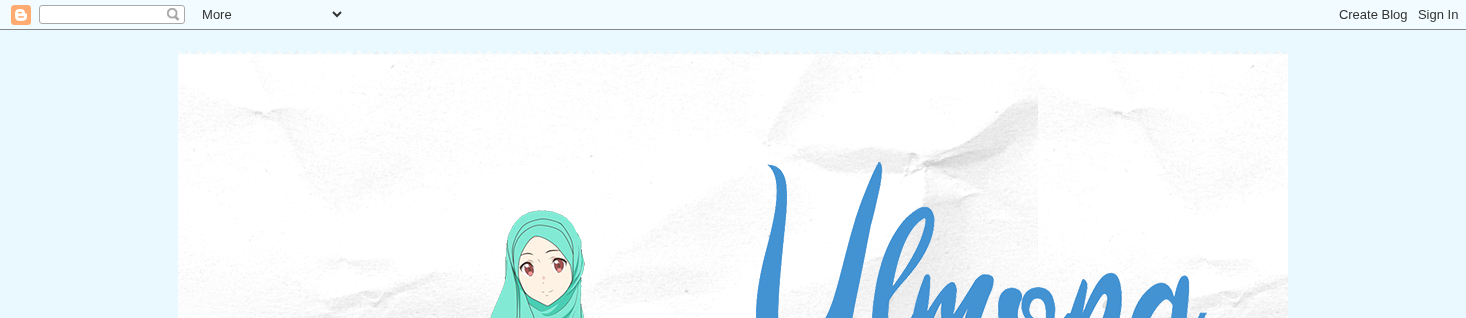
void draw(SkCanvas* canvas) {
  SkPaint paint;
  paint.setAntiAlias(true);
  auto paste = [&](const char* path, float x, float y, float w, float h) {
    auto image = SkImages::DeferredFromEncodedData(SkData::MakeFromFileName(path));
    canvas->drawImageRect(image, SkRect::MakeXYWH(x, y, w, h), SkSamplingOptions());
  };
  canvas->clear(0xffe9f9ff);
  paste("img/1.png", 0, 0, 1466, 30);
  paste("img/2.png", 178, 51, 1110, 4);
  paint.setColor(0xffffffff);
  canvas->drawRect(SkRect::MakeXYWH(178, 55, 1110, 263), paint);
  paste("img/3.png", 178, 55, 1110, 263);
  paste("img/4.png", 490, 162, 717, 156);
}
